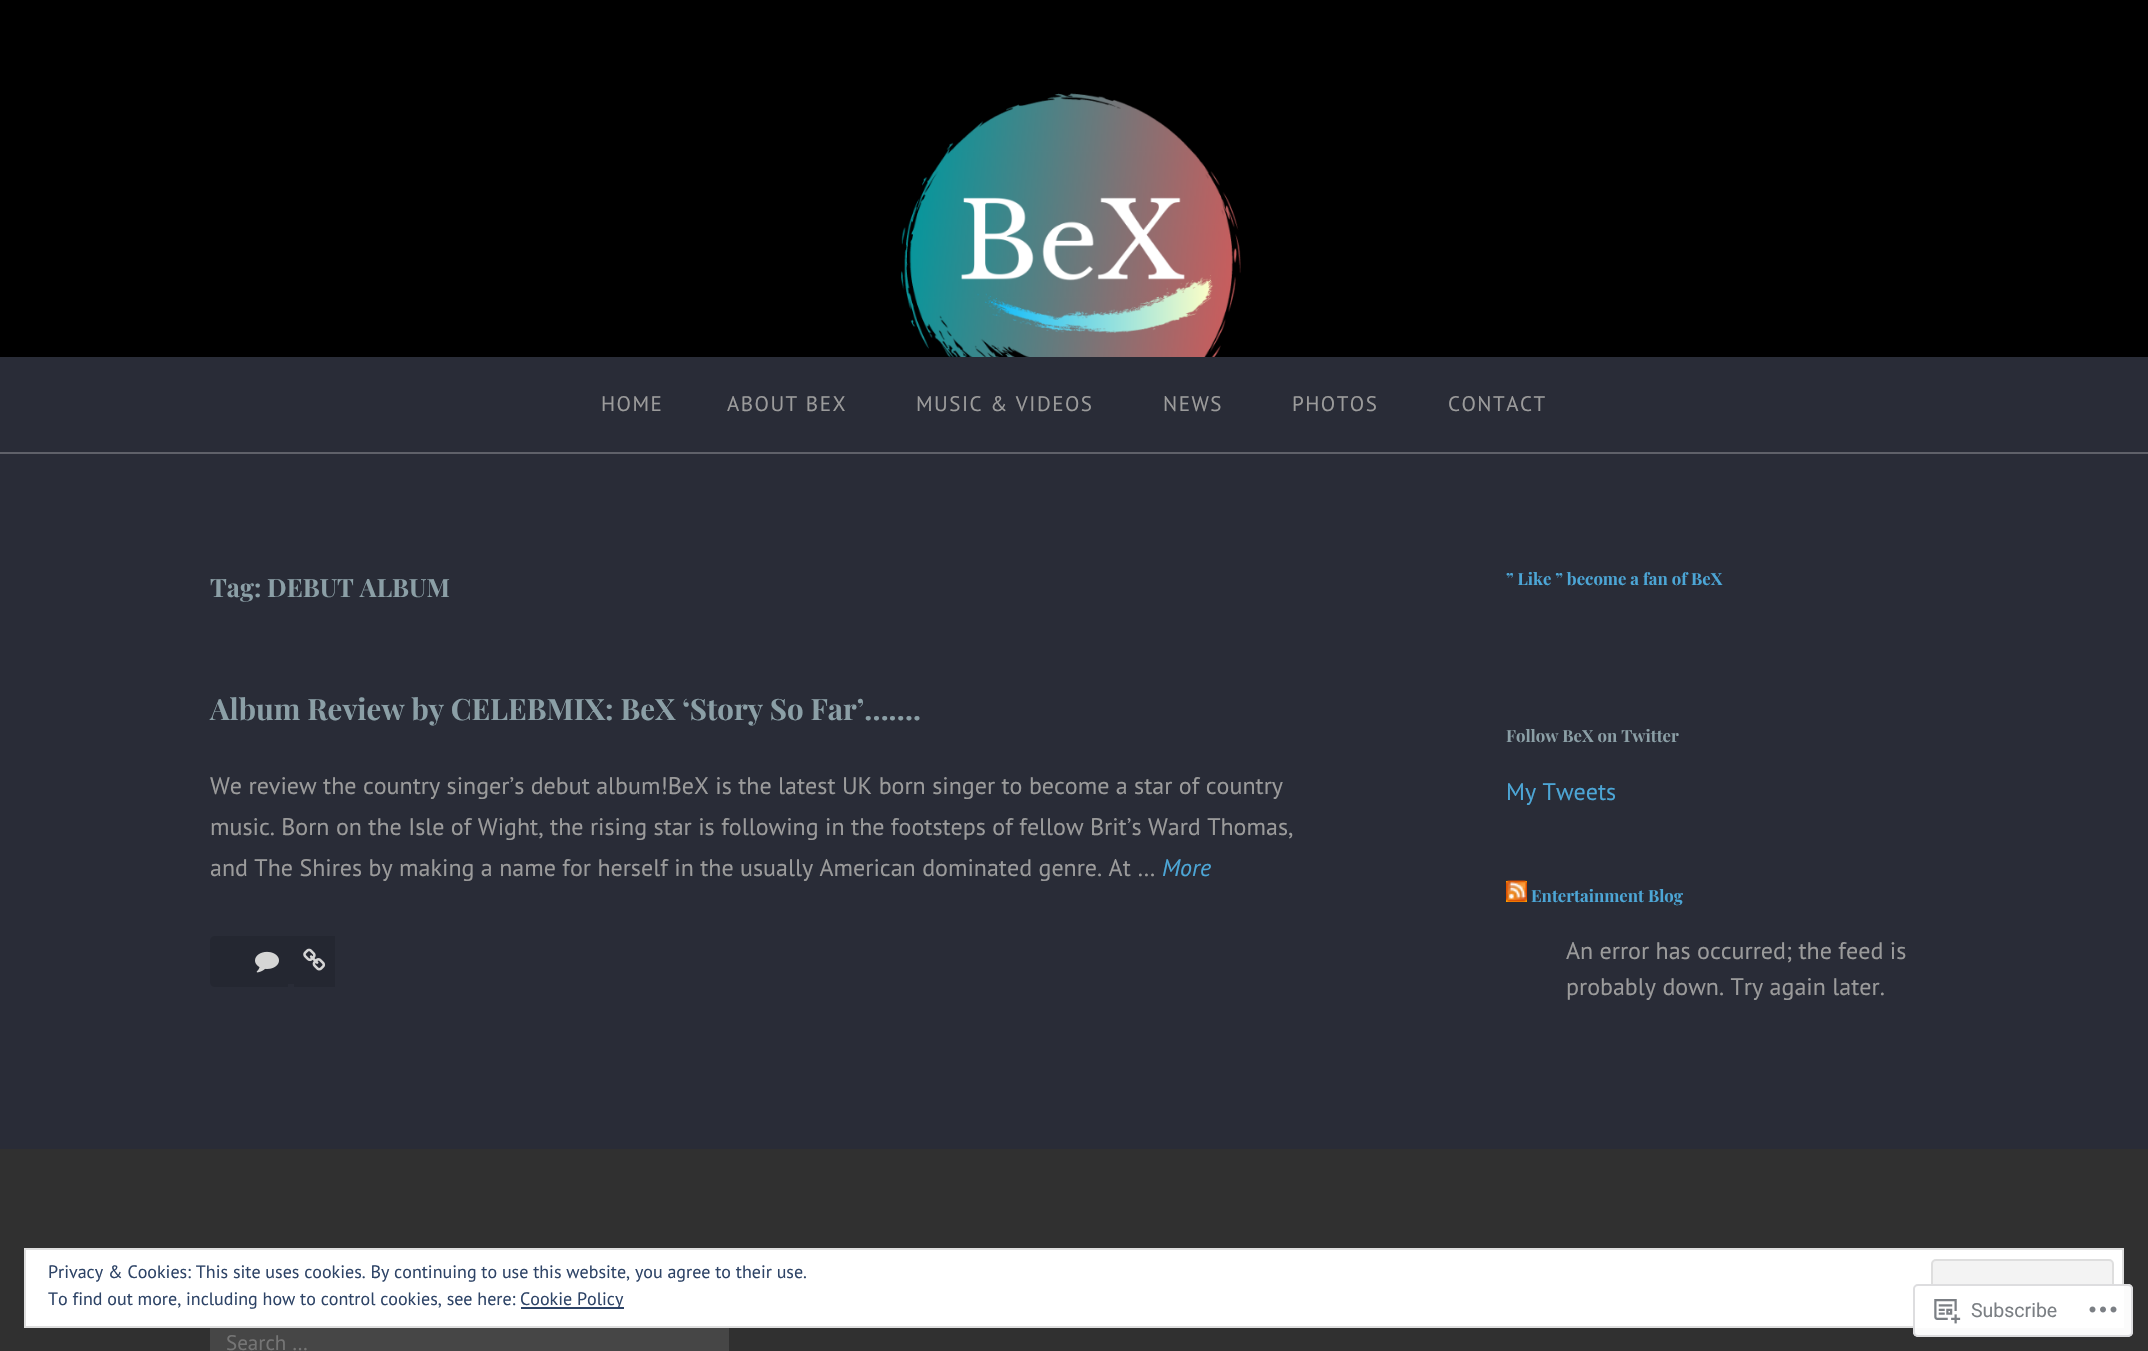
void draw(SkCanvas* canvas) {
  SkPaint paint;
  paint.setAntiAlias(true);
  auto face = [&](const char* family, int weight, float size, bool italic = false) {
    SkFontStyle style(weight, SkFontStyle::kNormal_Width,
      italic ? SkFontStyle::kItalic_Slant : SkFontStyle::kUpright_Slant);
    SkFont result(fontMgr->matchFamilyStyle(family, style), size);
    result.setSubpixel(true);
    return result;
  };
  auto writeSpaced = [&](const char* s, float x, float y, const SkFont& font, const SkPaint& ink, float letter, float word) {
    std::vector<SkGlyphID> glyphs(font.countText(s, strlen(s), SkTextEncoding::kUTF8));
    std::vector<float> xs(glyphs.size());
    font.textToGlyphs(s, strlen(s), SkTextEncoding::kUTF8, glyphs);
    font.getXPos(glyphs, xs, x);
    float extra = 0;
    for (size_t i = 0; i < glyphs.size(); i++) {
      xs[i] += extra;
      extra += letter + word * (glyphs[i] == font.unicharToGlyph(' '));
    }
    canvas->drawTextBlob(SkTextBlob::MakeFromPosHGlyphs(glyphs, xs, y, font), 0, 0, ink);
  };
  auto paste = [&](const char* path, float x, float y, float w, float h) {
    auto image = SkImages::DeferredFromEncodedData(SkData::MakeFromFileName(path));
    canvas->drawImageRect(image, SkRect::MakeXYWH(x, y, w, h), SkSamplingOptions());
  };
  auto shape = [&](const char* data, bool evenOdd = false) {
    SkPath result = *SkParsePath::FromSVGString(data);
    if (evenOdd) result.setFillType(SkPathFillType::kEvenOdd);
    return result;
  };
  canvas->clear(0xff292c37);
  paste("img/1.png", 0, 0, 2148, 357);
  paint.setColor(0xff5f6169);
  canvas->drawRect(SkRect::MakeXYWH(0, 452, 2148, 2), paint);
  paint.setColor(0xff242731);
  canvas->drawPath(shape("M215 936H288V987H215C212 987 210 985 210 982V941C210 938 212 936 215 936Z"), paint);
  canvas->drawRect(SkRect::MakeXYWH(288, 936, 6, 48), paint);
  canvas->drawRect(SkRect::MakeXYWH(294, 936, 41, 51), paint);
  paste("img/2.png", 255, 951, 24, 22);
  paste("img/3.png", 303, 948, 23, 23);
  paint.setColor(0xffffa500);
  canvas->drawRect(SkRect::MakeXYWH(1506, 881, 21, 21), paint);
  paste("img/4.png", 1506, 880, 21, 22);
  paint.setColor(0xff303030);
  canvas->drawRect(SkRect::MakeXYWH(0, 1149, 2148, 202), paint);
  paint.setColor(0xff464646);
  canvas->drawRect(SkRect::MakeXYWH(210, 1328, 519, 23), paint);
  paint.setColor(0xffffffff);
  canvas->drawRect(SkRect::MakeXYWH(25, 1249, 2098, 78), paint);
  paint.setStroke(true);
  paint.setStrokeWidth(2);
  paint.setColor(0xffdedede);
  canvas->drawRect(SkRect::MakeXYWH(25, 1249, 2098, 78), paint);
  paint.setStroke(false);
  paint.setColor(0xfff3f3f3);
  canvas->drawRoundRect(SkRect::MakeXYWH(1932, 1260, 181, 56), 4, 4, paint);
  paint.setStroke(true);
  paint.setColor(0xffdedede);
  canvas->drawRoundRect(SkRect::MakeXYWH(1932, 1260, 181, 56), 4, 4, paint);
  paint.setStroke(false);
  paint.setColor(0xff2e4467);
  canvas->drawRect(SkRect::MakeXYWH(521, 1307, 103, 2), paint);
  paint.setColor(0xfaffffff);
  canvas->drawRoundRect(SkRect::MakeXYWH(1913, 1284, 220, 53), 5, 5, paint);
  paint.setStroke(true);
  paint.setColor(0xfadcdcde);
  canvas->drawRoundRect(SkRect::MakeXYWH(1914, 1285, 218, 51), 4, 4, paint);
  paste("img/5.png", 1934, 1299, 27, 25);
  paste("img/6.png", 2089, 1306, 28, 7);
  auto f0 = face("PT Sans", 400, 21);
  paint.setStroke(false);
  paint.setColor(0xff9b9b9b);
  {
    const struct { const char* s; float x, y; } items[] = {
      {"HOME", 601, 411},
      {"ABOUT BEX", 727, 411},
      {"MUSIC & VIDEOS", 916, 411},
      {"NEWS", 1163, 411},
      {"PHOTOS", 1292, 411},
      {"CONTACT", 1448, 411},
    };
    for (auto [s, x, y] : items) {
      writeSpaced(s, x, y, f0, paint, 1.5f, 0);
    }
  }
  auto f1 = face("Playfair Display", 700, 25.25f);
  paint.setColor(0xff8b9fa6);
  canvas->drawString("Tag: DEBUT ALBUM", 210, 597, f1, paint);
  auto f2 = face("Playfair Display", 700, 29.4f);
  canvas->drawString("Album Review by CELEBMIX: BeX ‘Story So Far’…….", 210, 720, f2, paint);
  auto f3 = face("PT Sans", 400, 24);
  paint.setColor(0xff9b9b9b);
  {
    const struct { const char* s; float x, y; } items[] = {
      {"We review the country singer’s debut album!BeX is the latest UK born singer to become a star of country", 210, 794},
      {"music. Born on the Isle of Wight, the rising star is following in the footsteps of fellow Brit’s Ward Thomas,", 210, 835},
      {"and The Shires by making a name for herself in the usually American dominated genre. At …", 210, 876},
    };
    for (auto [s, x, y] : items) {
      canvas->drawString(s, x, y, f3, paint);
    }
  }
  auto f4 = face("PT Sans", 400, 24, true);
  paint.setColor(0xff4ca6d6);
  canvas->drawString("More", 1162, 876, f4, paint);
  auto f5 = face("Playfair Display", 700, 16.75f);
  canvas->drawString("” Like ” become a fan of BeX", 1506, 585, f5, paint);
  paint.setColor(0xff8b9fa6);
  canvas->drawString("Follow BeX on Twitter", 1506, 742, f5, paint);
  paint.setColor(0xff4ca6d6);
  canvas->drawString("My Tweets", 1506, 800, f3, paint);
  canvas->drawString("Entertainment Blog", 1531, 902, f5, paint);
  paint.setColor(0xff9b9b9b);
  canvas->drawString("An error has occurred; the feed is", 1566, 959, f3, paint);
  canvas->drawString("probably down. Try again later.", 1566, 995, f3, paint);
  paint.setColor(0xff757575);
  canvas->drawString("Search …", 226, 1350, f0, paint);
  auto f6 = face("PT Sans", 400, 18);
  paint.setColor(0xff2e4467);
  {
    const struct { const char* s; float x, y; } items[] = {
      {"Privacy & Cookies: This site uses cookies. By continuing to use this website, you agree to their use.", 48, 1278},
      {"To find out more, including how to control cookies, see here:", 48, 1305},
      {"Cookie Policy", 520, 1305},
    };
    for (auto [s, x, y] : items) {
      canvas->drawString(s, x, y, f6, paint);
    }
  }
  auto f7 = face("Roboto", 400, 19.5f);
  paint.setColor(0xff7b7f84);
  canvas->drawString("Subscribe", 1971, 1317, f7, paint);
}
